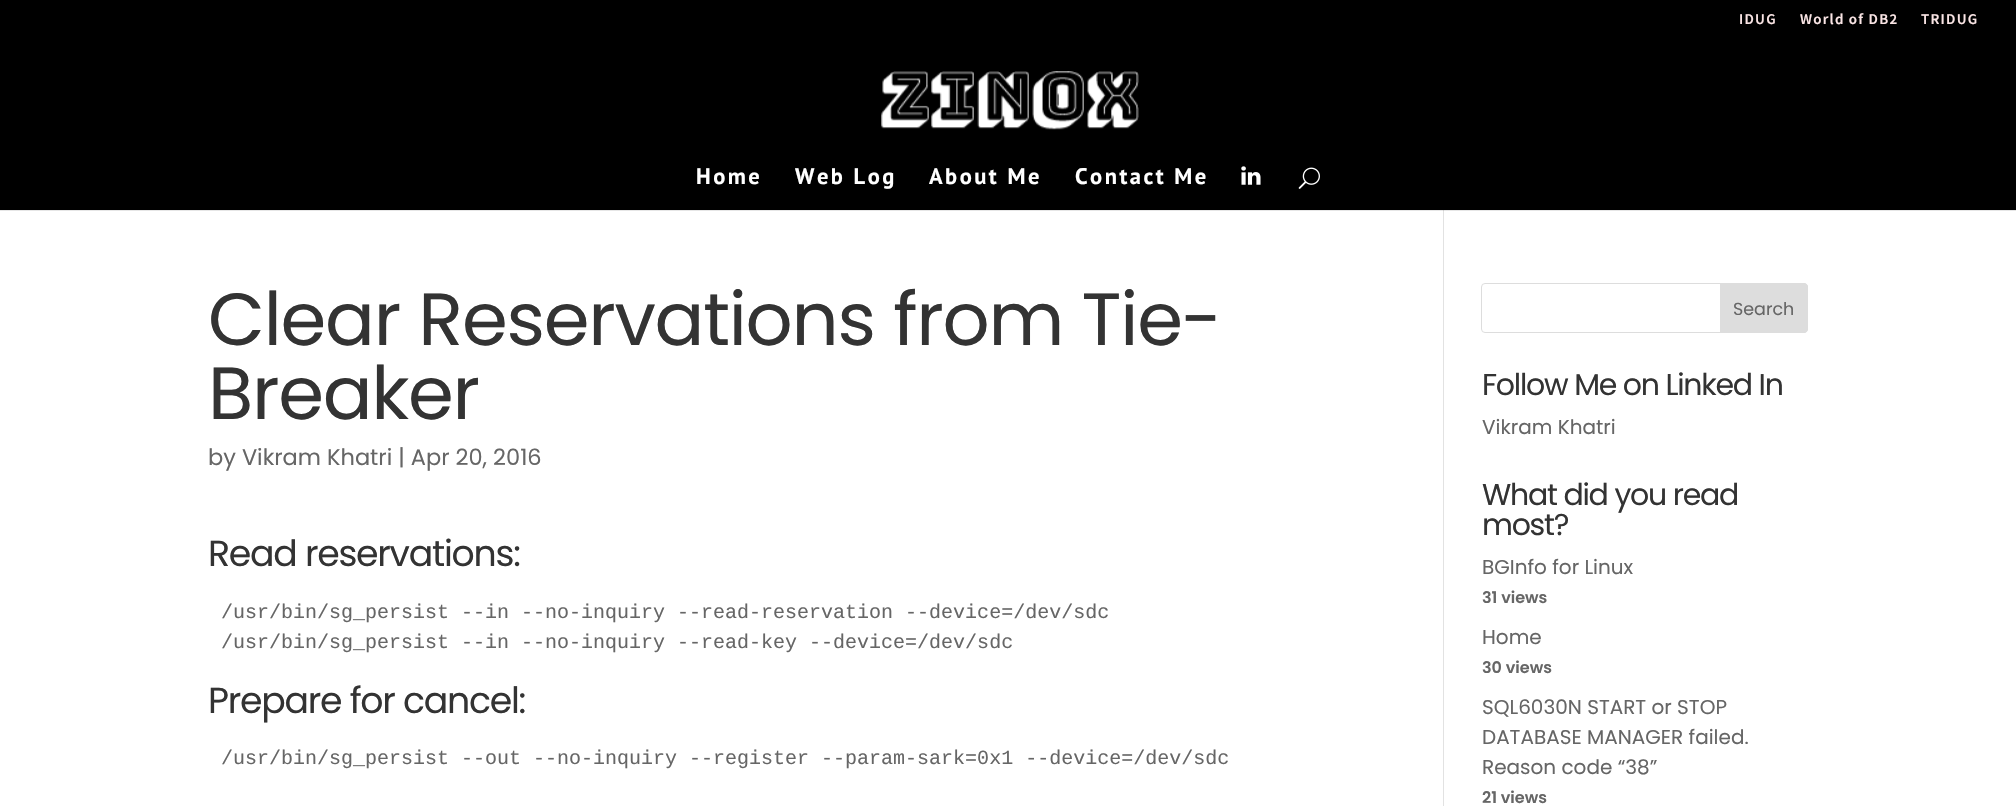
void draw(SkCanvas* canvas) {
  SkPaint paint;
  paint.setAntiAlias(true);
  auto face = [&](const char* family, int weight, float size, bool italic = false) {
    SkFontStyle style(weight, SkFontStyle::kNormal_Width,
      italic ? SkFontStyle::kItalic_Slant : SkFontStyle::kUpright_Slant);
    SkFont result(fontMgr->matchFamilyStyle(family, style), size);
    result.setSubpixel(true);
    return result;
  };
  auto writeSpaced = [&](const char* s, float x, float y, const SkFont& font, const SkPaint& ink, float letter, float word) {
    std::vector<SkGlyphID> glyphs(font.countText(s, strlen(s), SkTextEncoding::kUTF8));
    std::vector<float> xs(glyphs.size());
    font.textToGlyphs(s, strlen(s), SkTextEncoding::kUTF8, glyphs);
    font.getXPos(glyphs, xs, x);
    float extra = 0;
    for (size_t i = 0; i < glyphs.size(); i++) {
      xs[i] += extra;
      extra += letter + word * (glyphs[i] == font.unicharToGlyph(' '));
    }
    canvas->drawTextBlob(SkTextBlob::MakeFromPosHGlyphs(glyphs, xs, y, font), 0, 0, ink);
  };
  auto paste = [&](const char* path, float x, float y, float w, float h) {
    auto image = SkImages::DeferredFromEncodedData(SkData::MakeFromFileName(path));
    canvas->drawImageRect(image, SkRect::MakeXYWH(x, y, w, h), SkSamplingOptions());
  };
  auto shape = [&](const char* data, bool evenOdd = false) {
    SkPath result = *SkParsePath::FromSVGString(data);
    if (evenOdd) result.setFillType(SkPathFillType::kEvenOdd);
    return result;
  };
  canvas->clear(0xff000000);
  paste("img/1.png", 881, 71, 258, 59);
  paste("img/2.png", 1241, 166, 20, 19);
  paste("img/3.png", 1298, 167, 22, 22);
  {
    const struct { float x, y, w, h; SkColor color; } items[] = {
      {0, 211, 2016, 595, 0xffffffff},
      {0, 210, 2016, 1, 0xffe6e6e6},
      {1443, 210, 1, 596, 0xffe2e2e2},
      {1443, 210, 1, 1, 0xffcbcbcb},
    };
    for (auto [x, y, w, h, color] : items) {
      paint.setColor(color);
      canvas->drawRect(SkRect::MakeXYWH(x, y, w, h), paint);
    }
  }
  paint.setStroke(true);
  paint.setStrokeWidth(1);
  paint.setColor(0xffdddddd);
  canvas->drawRoundRect(SkRect::MakeXYWH(1481.5f, 283.5f, 326, 49), 3.5f, 3.5f, paint);
  paint.setStroke(false);
  canvas->drawPath(shape("M1720.5 283.5H1804C1806 283.5 1807.5 285 1807.5 287V329C1807.5 331 1806 332.5 1804 332.5H1720.5Z"), paint);
  paint.setStroke(true);
  canvas->drawPath(shape("M1720.5 283.5H1804C1806 283.5 1807.5 285 1807.5 287V329C1807.5 331 1806 332.5 1804 332.5H1720.5Z"), paint);
  auto f0 = face("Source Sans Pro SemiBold", 600, 15);
  paint.setStroke(false);
  paint.setColor(0xfffae5e5);
  {
    const struct { const char* s; float x, y; } items[] = {
      {"IDUG", 1739, 24},
      {"World of DB2", 1800, 24},
      {"TRIDUG", 1921, 24},
    };
    for (auto [s, x, y] : items) {
      writeSpaced(s, x, y, f0, paint, 1.25f, 0);
    }
  }
  auto f1 = face("PT Sans", 700, 22.5f);
  paint.setColor(0xffffffff);
  {
    const struct { const char* s; float x, y; } items[] = {
      {"Home", 696, 184},
      {"Web Log", 795, 184},
      {"About Me", 929, 184},
      {"Contact Me", 1075, 184},
    };
    for (auto [s, x, y] : items) {
      writeSpaced(s, x, y, f1, paint, 2.5f, 0);
    }
  }
  auto f2 = face("Poppins", 400, 73.75f);
  paint.setColor(0xff333333);
  writeSpaced("Clear Reservations from Tie-", 208, 345, f2, paint, -1.25f, 0);
  writeSpaced("Breaker", 208, 419, f2, paint, -1.25f, 0);
  auto f3 = face("Poppins", 400, 22.5f);
  paint.setColor(0xff666666);
  canvas->drawString("by Vikram Khatri | Apr 20, 2016", 208, 465, f3, paint);
  auto f4 = face("Poppins", 400, 36.25f);
  paint.setColor(0xff333333);
  writeSpaced("Read reservations:", 208, 566, f4, paint, -1.25f, 0);
  auto f5 = face("Liberation Mono", 400, 20);
  paint.setColor(0xff666666);
  canvas->drawString("/usr/bin/sg_persist --in --no-inquiry --read-reservation --device=/dev/sdc", 221, 618, f5, paint);
  canvas->drawString("/usr/bin/sg_persist --in --no-inquiry --read-key --device=/dev/sdc", 221, 648, f5, paint);
  paint.setColor(0xff333333);
  writeSpaced("Prepare for cancel:", 208, 713, f4, paint, -1.25f, 0);
  paint.setColor(0xff666666);
  canvas->drawString("/usr/bin/sg_persist --out --no-inquiry --register --param-sark=0x1 --device=/dev/sdc", 221, 764, f5, paint);
  auto f6 = face("Poppins", 400, 17.5f);
  canvas->drawString("Search", 1733, 315, f6, paint);
  auto f7 = face("Poppins", 400, 30);
  paint.setColor(0xff333333);
  writeSpaced("Follow Me on Linked In", 1482, 395, f7, paint, -1.25f, 0);
  auto f8 = face("Poppins", 400, 20);
  paint.setColor(0xff666666);
  canvas->drawString("Vikram Khatri", 1482, 434, f8, paint);
  paint.setColor(0xff333333);
  writeSpaced("What did you read", 1482, 505, f7, paint, -1.25f, 0);
  writeSpaced("most?", 1482, 535, f7, paint, -1.25f, 0);
  paint.setColor(0xff666666);
  canvas->drawString("BGInfo for Linux", 1482, 574, f8, paint);
  auto f9 = face("Poppins", 600, 16);
  canvas->drawString("31 views", 1482, 603, f9, paint);
  canvas->drawString("Home", 1482, 644, f8, paint);
  canvas->drawString("30 views", 1482, 673, f9, paint);
  {
    const struct { const char* s; float x, y; } items[] = {
      {"SQL6030N START or STOP", 1482, 714},
      {"DATABASE MANAGER failed.", 1482, 744},
      {"Reason code “38”", 1482, 774},
    };
    for (auto [s, x, y] : items) {
      canvas->drawString(s, x, y, f8, paint);
    }
  }
  canvas->drawString("21 views", 1482, 803, f9, paint);
}
